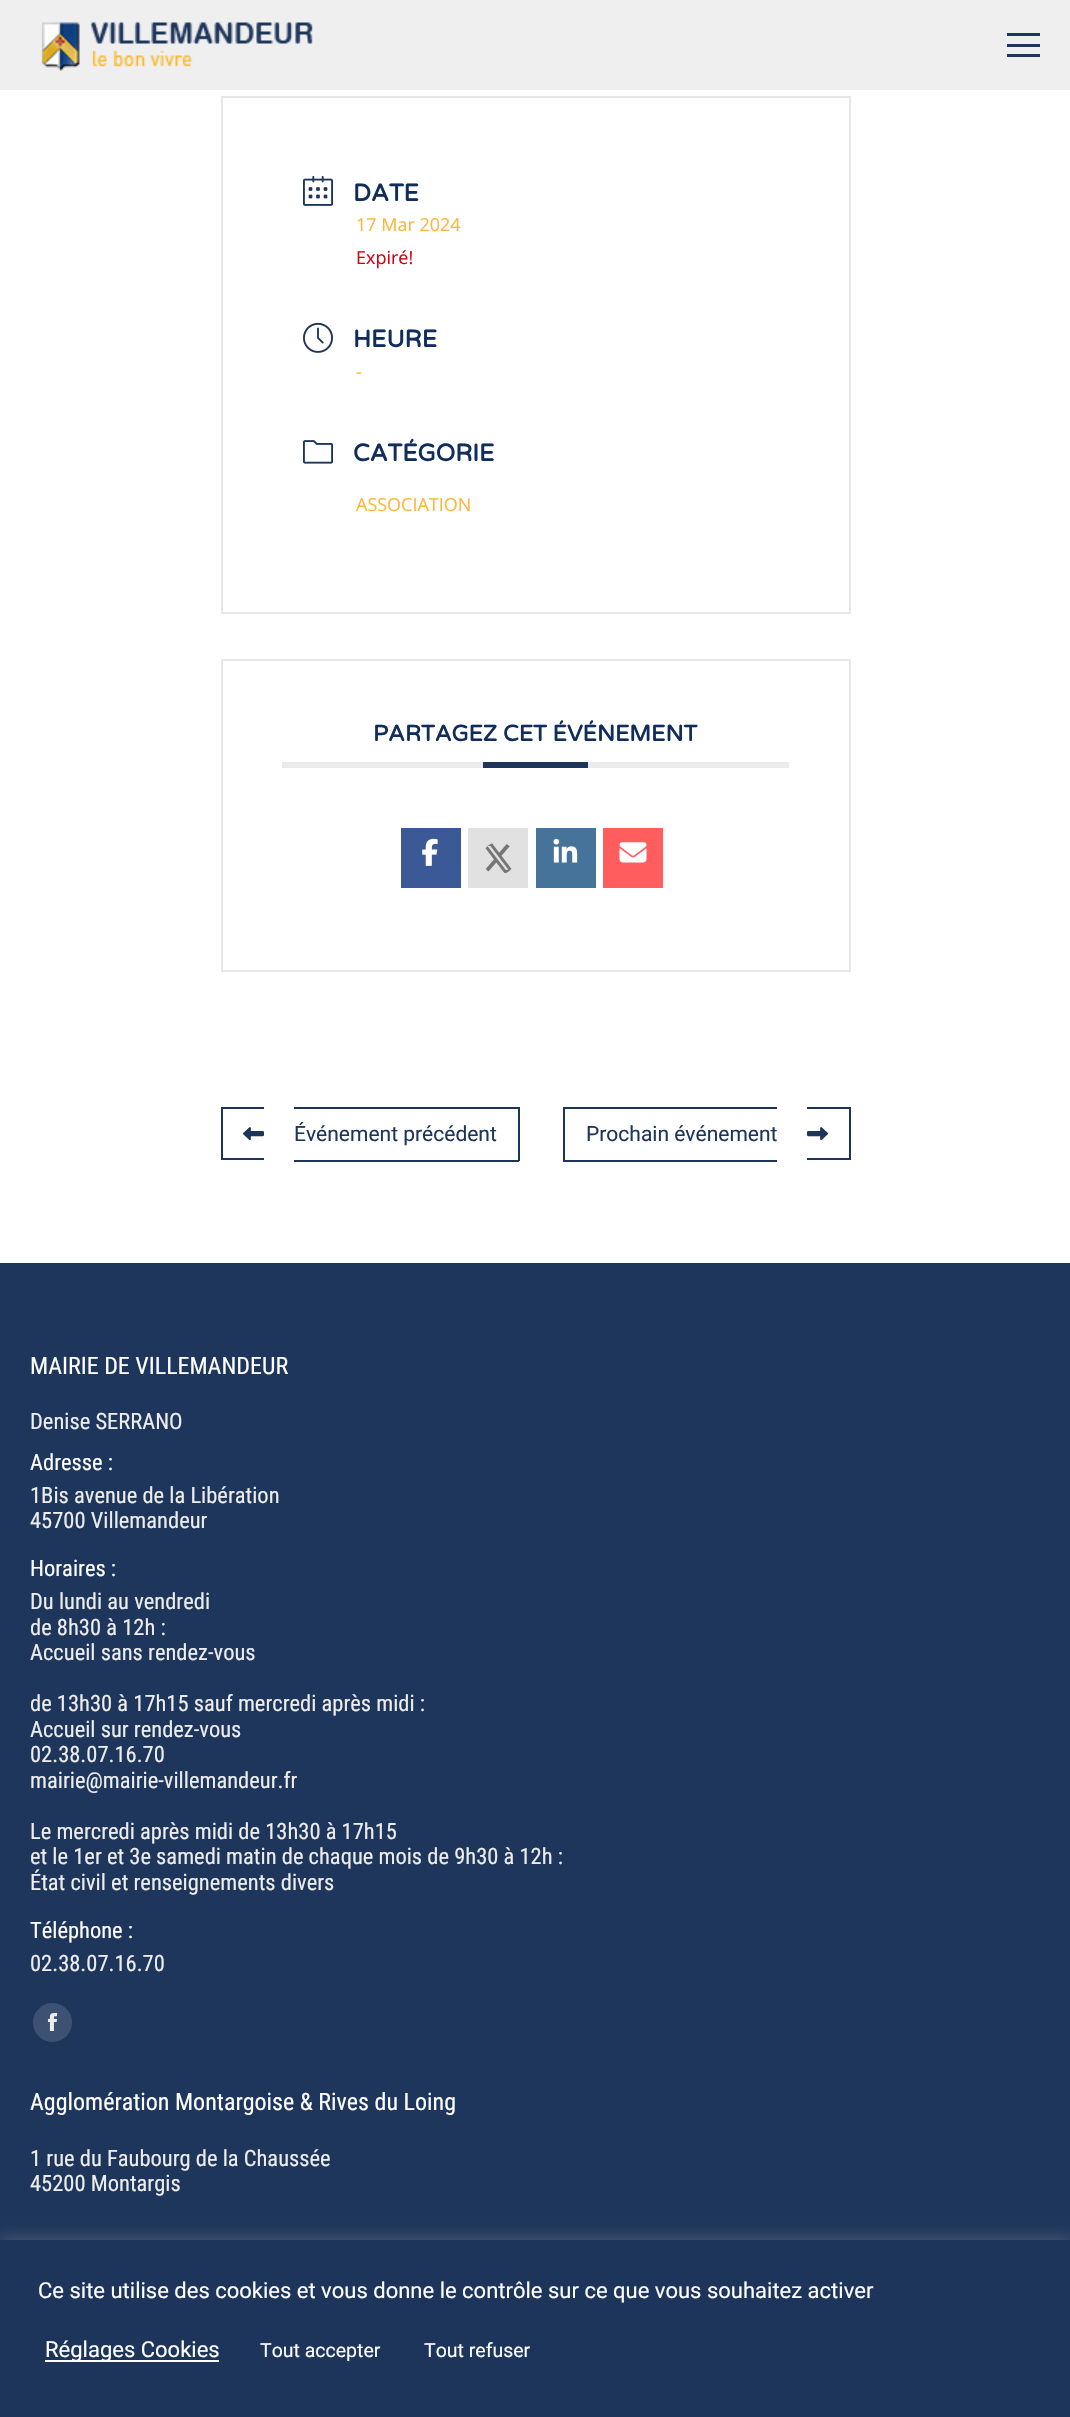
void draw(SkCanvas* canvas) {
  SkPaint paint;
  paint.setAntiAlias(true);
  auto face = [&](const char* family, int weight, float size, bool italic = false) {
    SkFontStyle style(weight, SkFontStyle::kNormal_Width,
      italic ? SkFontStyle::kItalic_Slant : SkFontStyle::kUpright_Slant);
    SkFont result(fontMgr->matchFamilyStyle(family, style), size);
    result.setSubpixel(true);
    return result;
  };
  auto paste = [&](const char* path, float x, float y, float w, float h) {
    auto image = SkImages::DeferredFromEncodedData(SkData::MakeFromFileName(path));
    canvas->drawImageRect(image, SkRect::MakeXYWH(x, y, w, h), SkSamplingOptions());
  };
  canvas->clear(0xffffffff);
  paint.setColor(0xffefefef);
  canvas->drawRect(SkRect::MakeXYWH(0, 0, 1070, 90), paint);
  paste("img/1.png", 41, 22, 272, 49);
  {
    const struct { float x, y, w, h; SkColor color; } items[] = {
      {1007, 33, 33, 3, 0xff1e365c},
      {1007, 44, 33, 3, 0xff1e365c},
      {1007, 54, 33, 3, 0xff1e365c},
    };
    for (auto [x, y, w, h, color] : items) {
      paint.setColor(color);
      canvas->drawRect(SkRect::MakeXYWH(x, y, w, h), paint);
    }
  }
  paint.setStroke(true);
  paint.setStrokeWidth(2);
  paint.setColor(0xffe6e7e8);
  canvas->drawRect(SkRect::MakeXYWH(222, 97, 628, 516), paint);
  paste("img/2.png", 303, 175, 30, 31);
  paste("img/3.png", 303, 322, 30, 31);
  paste("img/4.png", 303, 440, 30, 24);
  canvas->drawRect(SkRect::MakeXYWH(222, 660, 628, 311), paint);
  paint.setStroke(false);
  {
    const struct { float x, y, w, h; SkColor color; } items[] = {
      {282, 762, 507, 6, 0xffebebeb},
      {483, 762, 105, 6, 0xff1e355b},
      {401, 828, 60, 60, 0xff3b5996},
    };
    for (auto [x, y, w, h, color] : items) {
      paint.setColor(color);
      canvas->drawRect(SkRect::MakeXYWH(x, y, w, h), paint);
    }
  }
  paste("img/5.png", 422, 838, 16, 28);
  paint.setColor(0xffe1e1e1);
  canvas->drawRect(SkRect::MakeXYWH(468, 828, 60, 60), paint);
  paste("img/6.png", 485, 843, 27, 30);
  paint.setColor(0xff457399);
  canvas->drawRect(SkRect::MakeXYWH(536, 828, 60, 60), paint);
  paste("img/7.png", 553, 838, 25, 25);
  paint.setColor(0xffff5d5e);
  canvas->drawRect(SkRect::MakeXYWH(603, 828, 60, 60), paint);
  paste("img/8.png", 619, 842, 28, 21);
  paste("img/9.png", 243, 1127, 21, 14);
  {
    const struct { float x, y, w, h; SkColor color; } items[] = {
      {221, 1107, 43, 2, 0xff1e355b},
      {221, 1158, 43, 2, 0xff1e355b},
      {221, 1107, 2, 53, 0xff1e355b},
      {294, 1107, 225, 2, 0xff1e355b},
      {518, 1107, 2, 54, 0xff1e355b},
      {294, 1160, 225, 2, 0xff1e355b},
      {563, 1107, 214, 2, 0xff1e355b},
      {563, 1160, 214, 2, 0xff1e355b},
      {563, 1107, 2, 54, 0xff1e355b},
      {807, 1107, 44, 2, 0xff1e355b},
      {849, 1107, 2, 53, 0xff1e355b},
      {807, 1158, 44, 2, 0xff1e355b},
    };
    for (auto [x, y, w, h, color] : items) {
      paint.setColor(color);
      canvas->drawRect(SkRect::MakeXYWH(x, y, w, h), paint);
    }
  }
  paste("img/10.png", 807, 1127, 21, 14);
  paint.setColor(0xff1e365c);
  canvas->drawRect(SkRect::MakeXYWH(0, 1263, 1070, 977), paint);
  paint.setColor(0xff3d5172);
  canvas->drawCircle(52.5f, 2022.5f, 19.5f, paint);
  paste("img/11.png", 47, 2013, 11, 18);
  paint.setColor(0x4dacabab);
  paint.setMaskFilter(SkMaskFilter::MakeBlur(kNormal_SkBlurStyle, 7.5f));
  canvas->drawRect(SkRect::MakeXYWH(0, 2238, 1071, 179), paint);
  paint.setMaskFilter(nullptr);
  paint.setColor(0xff1e355b);
  canvas->drawRect(SkRect::MakeXYWH(0, 2240, 1070, 177), paint);
  paint.setColor(0xffffffff);
  canvas->drawRect(SkRect::MakeXYWH(45, 2360, 174, 2), paint);
  auto f0 = face("Varela Round", 700, 24);
  paint.setColor(0xff112d5b);
  canvas->drawString("DATE", 353, 201, f0, paint);
  auto f1 = face("Open Sans", 400, 18);
  paint.setColor(0xffffb536);
  canvas->drawString("17 Mar 2024", 356, 231, f1, paint);
  paint.setColor(0xffd8000c);
  canvas->drawString("Expiré!", 356, 264, f1, paint);
  paint.setColor(0xff112d5b);
  canvas->drawString("HEURE", 353, 347, f0, paint);
  paint.setColor(0xffffb536);
  canvas->drawString("-", 356, 378, f1, paint);
  paint.setColor(0xff112d5b);
  canvas->drawString("CATÉGORIE", 353, 461, f0, paint);
  paint.setColor(0xffffb536);
  canvas->drawString("ASSOCIATION", 356, 511, f1, paint);
  auto f2 = face("Varela Round", 700, 22.5f);
  paint.setColor(0xff112d5b);
  canvas->drawString("PARTAGEZ CET ÉVÉNEMENT", 373, 741, f2, paint);
  auto f3 = face("Roboto", 400, 21);
  paint.setColor(0xff1e355b);
  canvas->drawString("Événement précédent", 294, 1141, f3, paint);
  canvas->drawString("Prochain événement", 586, 1141, f3, paint);
  auto f4 = face("Roboto Condensed", 400, 24);
  paint.setColor(0xffffffff);
  canvas->drawString("MAIRIE DE VILLEMANDEUR", 30, 1374, f4, paint);
  auto f5 = face("Roboto Condensed", 400, 22.5f);
  paint.setColor(0xffededed);
  canvas->drawString("Denise SERRANO", 30, 1429, f5, paint);
  paint.setColor(0xffffffff);
  canvas->drawString("Adresse :", 30, 1470, f5, paint);
  paint.setColor(0xffededed);
  canvas->drawString("1Bis avenue de la Libération", 30, 1503, f5, paint);
  canvas->drawString("45700 Villemandeur", 30, 1528, f5, paint);
  paint.setColor(0xffffffff);
  canvas->drawString("Horaires :", 30, 1576, f5, paint);
  paint.setColor(0xffededed);
  {
    const struct { const char* s; float x, y; } items[] = {
      {"Du lundi au vendredi", 30, 1609},
      {"de 8h30 à 12h :", 30, 1635},
      {"Accueil sans rendez-vous", 30, 1660},
      {"de 13h30 à 17h15 sauf mercredi après midi :", 30, 1711},
      {"Accueil sur rendez-vous", 30, 1737},
      {"02.38.07.16.70", 30, 1762},
      {"mairie@mairie-villemandeur.fr", 30, 1788},
      {"Le mercredi après midi de 13h30 à 17h15", 30, 1839},
      {"et le 1er et 3e samedi matin de chaque mois de 9h30 à 12h :", 30, 1864},
      {"État civil et renseignements divers", 30, 1890},
    };
    for (auto [s, x, y] : items) {
      canvas->drawString(s, x, y, f5, paint);
    }
  }
  paint.setColor(0xffffffff);
  canvas->drawString("Téléphone :", 30, 1938, f5, paint);
  paint.setColor(0xffededed);
  canvas->drawString("02.38.07.16.70", 30, 1971, f5, paint);
  paint.setColor(0xffffffff);
  canvas->drawString("Agglomération Montargoise & Rives du Loing", 30, 2110, f4, paint);
  paint.setColor(0xffededed);
  canvas->drawString("1 rue du Faubourg de la Chaussée", 30, 2166, f5, paint);
  canvas->drawString("45200 Montargis", 30, 2191, f5, paint);
  auto f6 = face("Roboto", 400, 22);
  paint.setColor(0xffffffff);
  canvas->drawString("Ce site utilise des cookies et vous donne le contrôle sur ce que vous souhaitez activer", 38, 2298, f6, paint);
  canvas->drawString("Réglages Cookies", 45, 2357, f6, paint);
  auto f7 = face("Roboto", 400, 19.5f);
  canvas->drawString("Tout accepter", 260, 2357, f7, paint);
  canvas->drawString("Tout refuser", 424, 2357, f7, paint);
}
